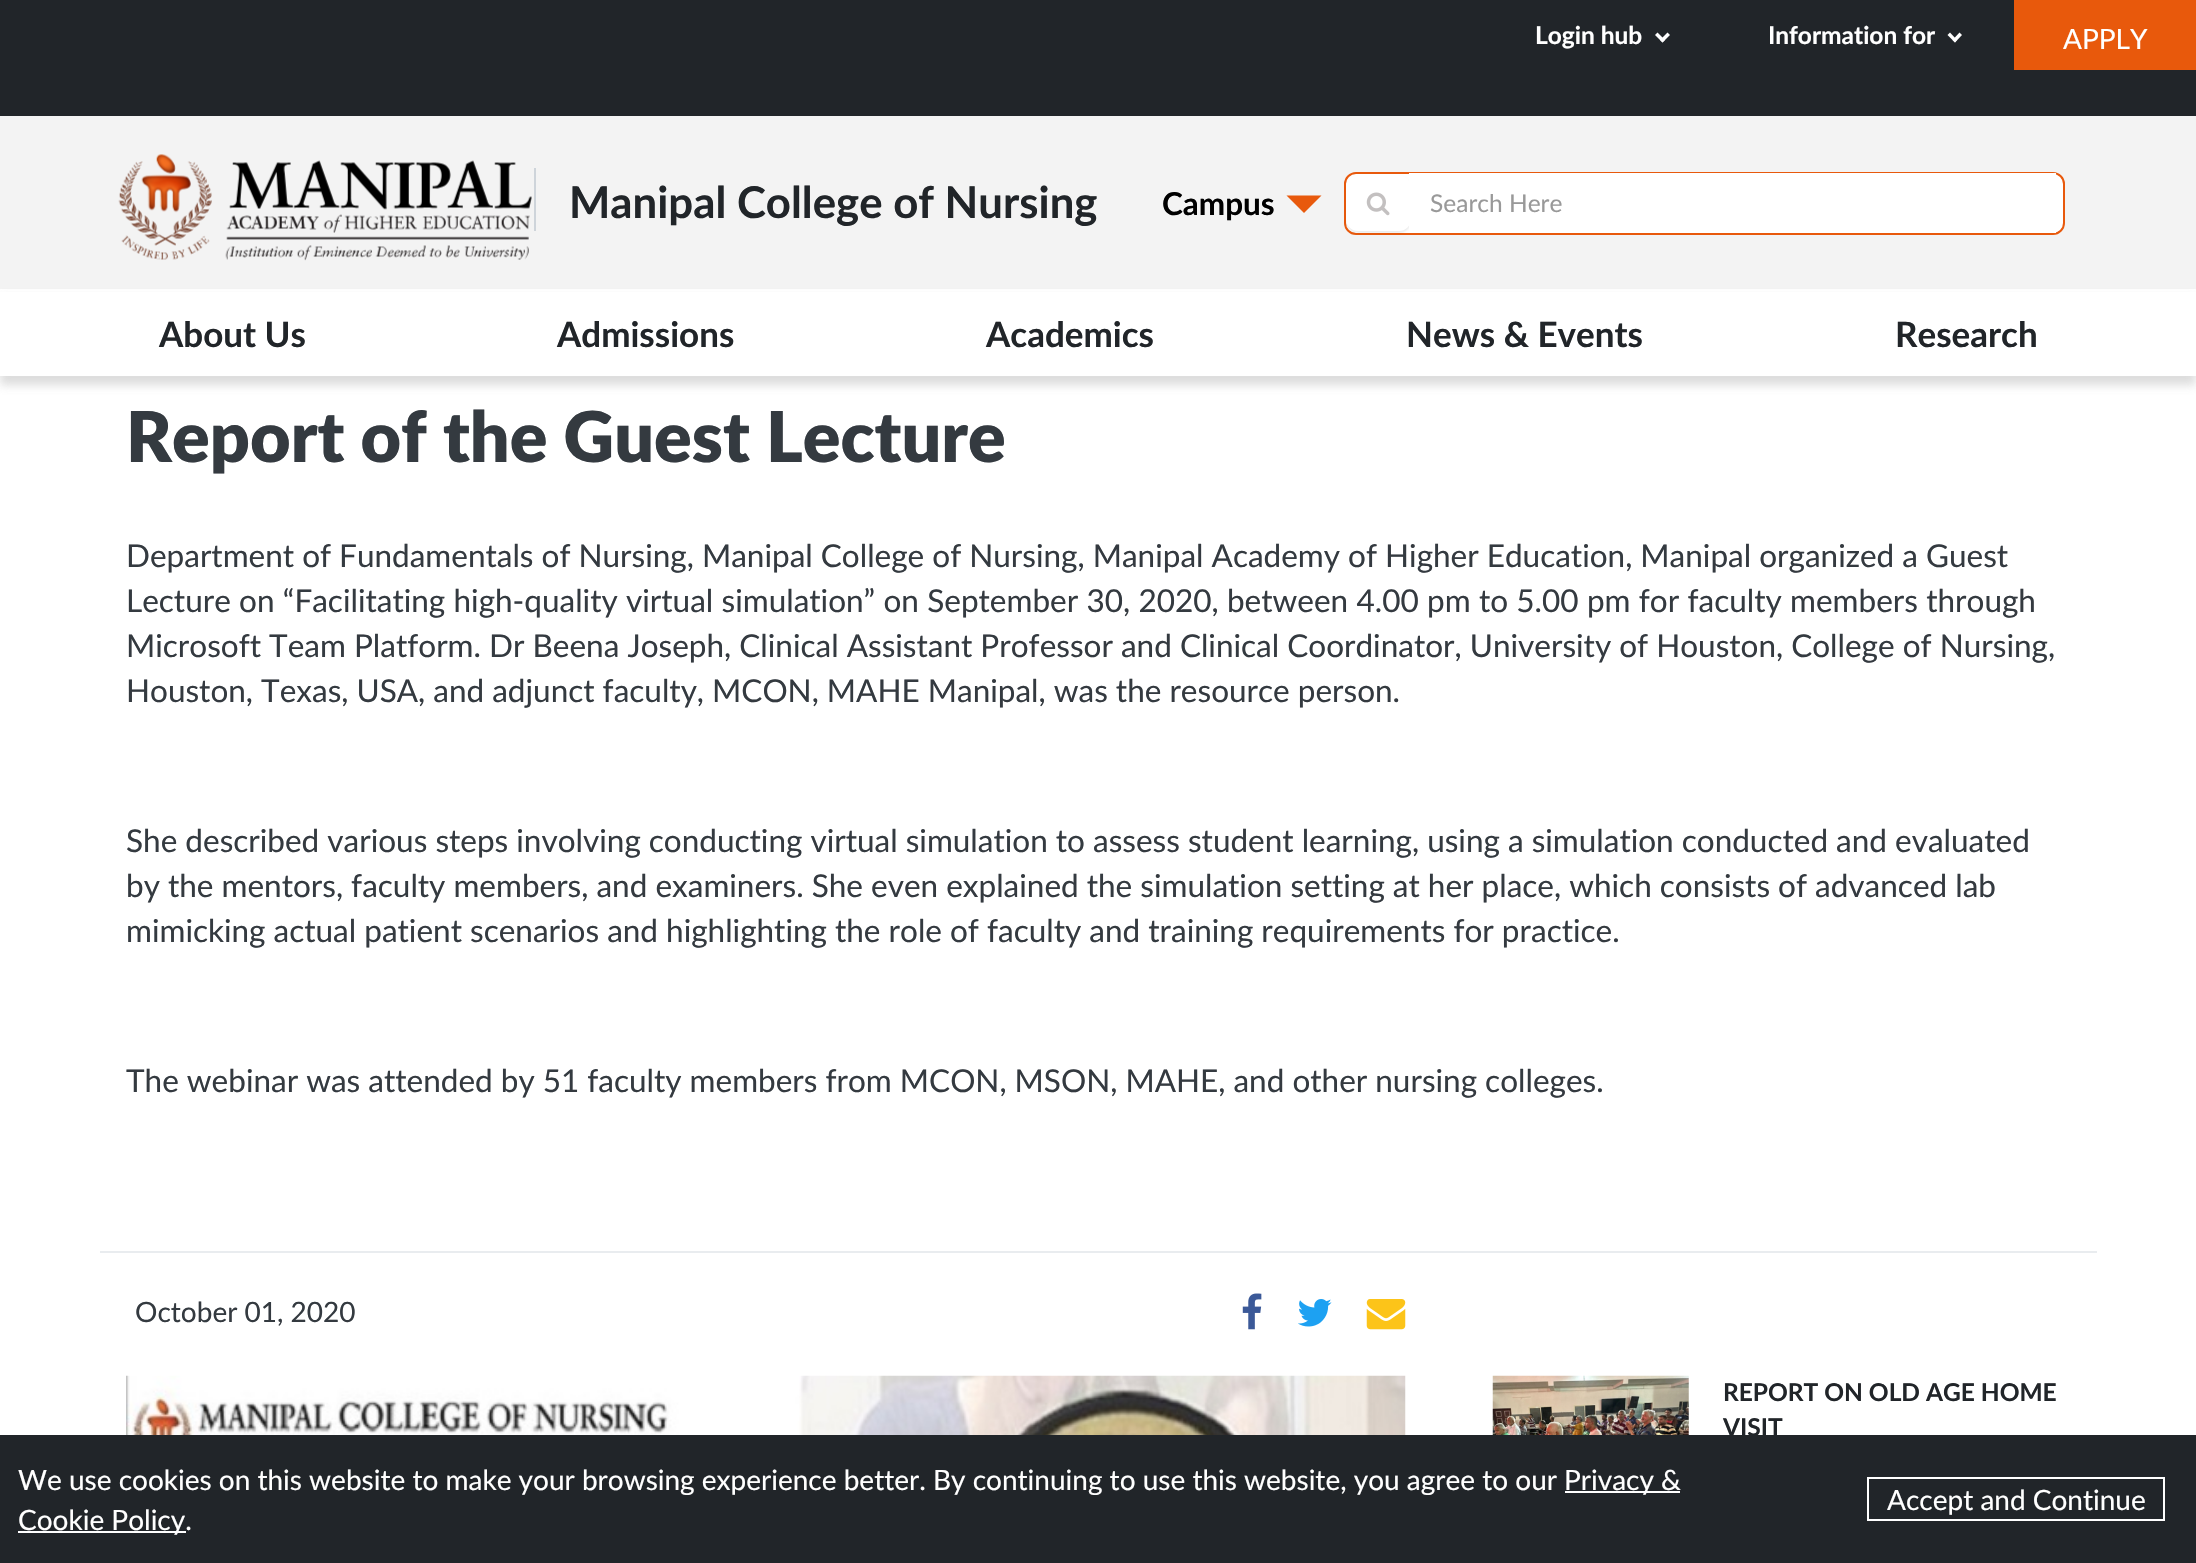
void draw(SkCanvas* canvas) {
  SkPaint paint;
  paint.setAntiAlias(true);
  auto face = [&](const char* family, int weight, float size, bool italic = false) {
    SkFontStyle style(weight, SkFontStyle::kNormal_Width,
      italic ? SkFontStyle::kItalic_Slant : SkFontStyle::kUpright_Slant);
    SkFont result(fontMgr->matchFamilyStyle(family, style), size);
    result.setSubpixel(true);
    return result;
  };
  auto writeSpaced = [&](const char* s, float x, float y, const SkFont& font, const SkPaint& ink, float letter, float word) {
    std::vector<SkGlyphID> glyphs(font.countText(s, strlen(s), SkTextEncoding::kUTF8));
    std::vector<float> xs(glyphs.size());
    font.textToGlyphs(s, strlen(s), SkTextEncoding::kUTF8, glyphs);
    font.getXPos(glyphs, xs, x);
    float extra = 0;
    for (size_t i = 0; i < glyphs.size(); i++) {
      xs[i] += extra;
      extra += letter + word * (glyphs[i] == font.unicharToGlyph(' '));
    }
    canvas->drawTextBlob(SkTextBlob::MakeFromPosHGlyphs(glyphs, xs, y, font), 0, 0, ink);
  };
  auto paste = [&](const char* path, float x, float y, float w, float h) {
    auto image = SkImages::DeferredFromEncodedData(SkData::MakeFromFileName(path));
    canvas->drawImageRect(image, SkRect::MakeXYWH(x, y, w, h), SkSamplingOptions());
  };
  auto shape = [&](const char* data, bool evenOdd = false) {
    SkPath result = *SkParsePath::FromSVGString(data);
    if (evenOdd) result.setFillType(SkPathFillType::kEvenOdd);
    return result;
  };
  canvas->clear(0xffffffff);
  paint.setColor(0xff212529);
  canvas->drawRect(SkRect::MakeXYWH(0, 0, 2014, 70), paint);
  paint.setColor(0xffffffff);
  canvas->drawPath(shape("M1667.5 32.5L1670 35L1662.5 42.5L1660 40Z"), paint);
  canvas->drawPath(shape("M1657.5 32.5L1665 40L1662.5 42.5L1655 35Z"), paint);
  canvas->drawPath(shape("M1959.5 32.5L1962 35L1955 42.5L1952.5 40Z"), paint);
  canvas->drawPath(shape("M1950 32.5L1957 40L1955 42.5L1947.5 35Z"), paint);
  {
    const struct { float x, y, w, h; SkColor color; } items[] = {
      {2014, 0, 182, 70, 0xffe8590c},
      {0, 70, 2196, 46, 0xff212529},
      {0, 116, 2196, 173, 0xfff3f3f3},
    };
    for (auto [x, y, w, h, color] : items) {
      paint.setColor(color);
      canvas->drawRect(SkRect::MakeXYWH(x, y, w, h), paint);
    }
  }
  paste("img/1.png", 118, 154, 414, 107);
  paint.setColor(0xffced4da);
  canvas->drawRect(SkRect::MakeXYWH(534, 168, 2, 63), paint);
  paint.setColor(0xffe8590c);
  canvas->drawPath(shape("M1286.5 195.5H1321.5L1304 213Z"), paint);
  paint.setColor(0xffffffff);
  canvas->drawRoundRect(SkRect::MakeXYWH(1345, 173, 719, 61), 11, 11, paint);
  paint.setStroke(true);
  paint.setStrokeWidth(2);
  paint.setColor(0xffe8590c);
  canvas->drawRoundRect(SkRect::MakeXYWH(1345, 173, 719, 61), 11, 11, paint);
  paint.setStroke(false);
  paint.setColor(0x12000000);
  paint.setMaskFilter(SkMaskFilter::MakeBlur(kNormal_SkBlurStyle, 1));
  canvas->drawRoundRect(SkRect::MakeXYWH(1346, 177, 65, 56), 12, 12, paint);
  paint.setMaskFilter(nullptr);
  paint.setColor(0xffffffff);
  canvas->drawRoundRect(SkRect::MakeXYWH(1346, 175, 65, 56), 12, 12, paint);
  paste("img/2.png", 1366, 192, 24, 24);
  canvas->drawRect(SkRect::MakeXYWH(1409, 173, 647, 60), paint);
  paint.setColor(0x61a2a2a2);
  paint.setMaskFilter(SkMaskFilter::MakeBlur(kNormal_SkBlurStyle, 4.5f));
  canvas->drawRect(SkRect::MakeXYWH(0, 298, 2196, 87), paint);
  paint.setMaskFilter(nullptr);
  paint.setColor(0xffffffff);
  canvas->drawRect(SkRect::MakeXYWH(0, 292, 2196, 84), paint);
  paint.setColor(0xffe9ecef);
  canvas->drawRect(SkRect::MakeXYWH(100, 1251, 1997, 2), paint);
  paste("img/3.png", 1242, 1293, 20, 37);
  paste("img/4.png", 1298, 1299, 34, 28);
  paste("img/5.png", 1366, 1299, 40, 31);
  paste("img/6.png", 126, 1375, 1280, 60);
  paste("img/7.png", 1492, 1375, 197, 60);
  {
    const struct { float x, y, w, h; SkColor color; } items[] = {
      {0, 1435, 2196, 128, 0xff212529},
      {1565, 1491, 115, 2, 0xffffffff},
      {18, 1531, 168, 2, 0xffffffff},
    };
    for (auto [x, y, w, h, color] : items) {
      paint.setColor(color);
      canvas->drawRect(SkRect::MakeXYWH(x, y, w, h), paint);
    }
  }
  paint.setStroke(true);
  canvas->drawRect(SkRect::MakeXYWH(1868, 1478, 296, 42), paint);
  auto f0 = face("Lato", 700, 24.5f);
  paint.setStroke(false);
  canvas->drawString("Login hub", 1535, 44, f0, paint);
  canvas->drawString("Information for", 1768, 44, f0, paint);
  auto f1 = face("Lato", 400, 28);
  canvas->drawString("APPLY", 2063, 49, f1, paint);
  auto f2 = face("Lato", 700, 43.75f);
  paint.setColor(0xff212529);
  canvas->drawString("Manipal College of Nursing", 569, 218, f2, paint);
  auto f3 = face("Lato", 700, 31.5f);
  paint.setColor(0xff000000);
  canvas->drawString("Campus", 1162, 215, f3, paint);
  auto f4 = face("Lato", 400, 24.5f);
  paint.setColor(0xff999999);
  canvas->drawString("Search Here", 1430, 212, f4, paint);
  auto f5 = face("Lato", 700, 35);
  paint.setColor(0xff212529);
  {
    const struct { const char* s; float x, y; } items[] = {
      {"About Us", 159, 347},
      {"Admissions", 557, 347},
      {"Academics", 986, 347},
      {"News & Events", 1406, 347},
      {"Research", 1895, 347},
    };
    for (auto [s, x, y] : items) {
      canvas->drawString(s, x, y, f5, paint);
    }
  }
  auto f6 = face("Lato", 900, 70);
  paint.setColor(0xff343a40);
  canvas->drawString("Report of the Guest Lecture", 126, 462, f6, paint);
  auto f7 = face("Lato", 400, 31.5f);
  canvas->drawString("Department of Fundamentals of Nursing, Manipal College of Nursing, Manipal Academy of Higher Education, Manipal organized a Guest", 126, 567, f7, paint);
  writeSpaced("Lecture on “Facilitating high-quality virtual simulation” on September 30, 2020, between 4.00 pm to 5.00 pm for faculty members through", 126, 612, f7, paint, 0, 0.25f);
  {
    const struct { const char* s; float x, y; } items[] = {
      {"Microsoft Team Platform. Dr Beena Joseph, Clinical Assistant Professor and Clinical Coordinator, University of Houston, College of Nursing,", 126, 657},
      {"Houston, Texas, USA, and adjunct faculty, MCON, MAHE Manipal, was the resource person.", 126, 702},
      {"She described various steps involving conducting virtual simulation to assess student learning, using a simulation conducted and evaluated", 126, 852},
      {"by the mentors, faculty members, and examiners. She even explained the simulation setting at her place, which consists of advanced lab", 126, 897},
      {"mimicking actual patient scenarios and highlighting the role of faculty and training requirements for practice.", 126, 942},
      {"The webinar was attended by 51 faculty members from MCON, MSON, MAHE, and other nursing colleges.", 126, 1092},
    };
    for (auto [s, x, y] : items) {
      canvas->drawString(s, x, y, f7, paint);
    }
  }
  canvas->drawString("October 01, 2020", 135, 1322, f1, paint);
  paint.setColor(0xff212529);
  canvas->drawString("REPORT ON OLD AGE HOME", 1723, 1401, f0, paint);
  canvas->drawString("VISIT", 1723, 1436, f0, paint);
  paint.setColor(0xffffffff);
  {
    const struct { const char* s; float x, y; } items[] = {
      {"We use cookies on this website to make your browsing experience better. By continuing to use this website, you agree to our", 18, 1490},
      {"Privacy &", 1564, 1490},
      {"Cookie Policy.", 18, 1530},
      {"Accept and Continue", 1887, 1510},
    };
    for (auto [s, x, y] : items) {
      canvas->drawString(s, x, y, f1, paint);
    }
  }
}
